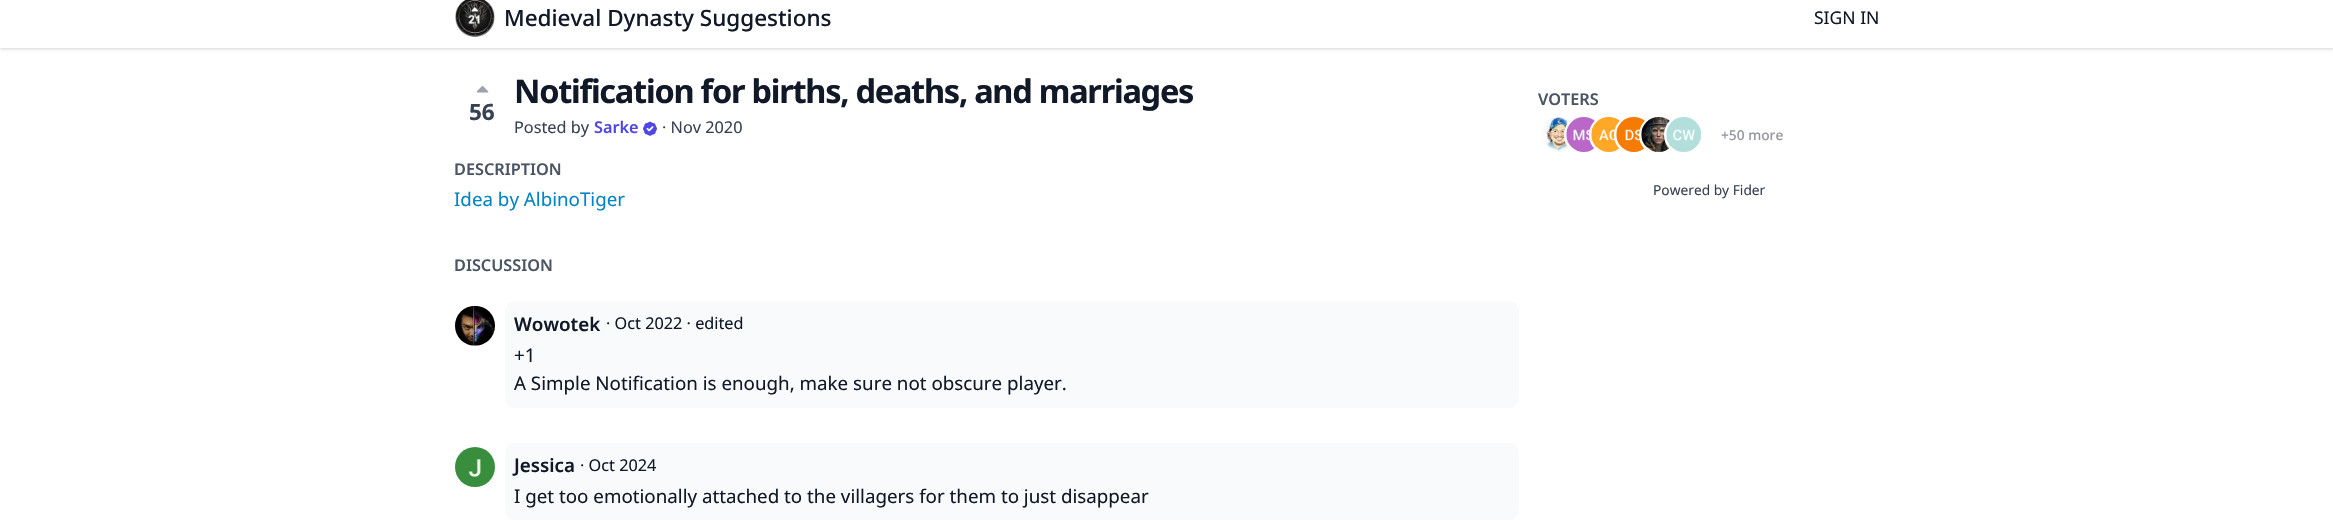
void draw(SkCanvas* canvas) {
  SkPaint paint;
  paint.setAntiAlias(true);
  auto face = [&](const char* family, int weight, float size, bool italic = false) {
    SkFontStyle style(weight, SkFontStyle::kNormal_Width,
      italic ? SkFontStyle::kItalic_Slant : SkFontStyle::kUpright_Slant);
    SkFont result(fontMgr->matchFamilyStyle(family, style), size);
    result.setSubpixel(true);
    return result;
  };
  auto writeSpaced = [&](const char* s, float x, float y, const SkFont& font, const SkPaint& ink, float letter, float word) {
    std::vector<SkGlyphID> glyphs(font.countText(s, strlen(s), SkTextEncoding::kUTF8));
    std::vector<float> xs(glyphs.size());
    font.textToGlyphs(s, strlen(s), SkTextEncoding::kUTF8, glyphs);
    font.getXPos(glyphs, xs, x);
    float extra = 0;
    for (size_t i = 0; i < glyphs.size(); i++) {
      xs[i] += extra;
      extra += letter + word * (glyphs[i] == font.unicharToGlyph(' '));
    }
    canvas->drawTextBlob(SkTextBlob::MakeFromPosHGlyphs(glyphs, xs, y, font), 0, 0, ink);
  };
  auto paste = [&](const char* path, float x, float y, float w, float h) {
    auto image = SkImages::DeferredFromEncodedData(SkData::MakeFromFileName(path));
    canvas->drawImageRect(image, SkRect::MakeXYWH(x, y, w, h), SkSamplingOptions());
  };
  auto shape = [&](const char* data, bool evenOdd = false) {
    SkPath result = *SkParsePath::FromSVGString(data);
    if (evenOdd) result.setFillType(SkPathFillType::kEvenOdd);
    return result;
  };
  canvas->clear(0xffffffff);
  canvas->save();
  canvas->clipPath(shape("M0 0H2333V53H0ZM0-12H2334V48H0Z", true), true);
  paint.setColor(0x0f000000);
  paint.setMaskFilter(SkMaskFilter::MakeBlur(kNormal_SkBlurStyle, 1));
  canvas->drawRect(SkRect::MakeXYWH(0, -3, 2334, 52), paint);
  paint.setMaskFilter(nullptr);
  canvas->restore();
  canvas->save();
  canvas->clipPath(shape("M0 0H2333V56H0ZM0-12H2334V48H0Z", true), true);
  paint.setColor(0x1a000000);
  paint.setMaskFilter(SkMaskFilter::MakeBlur(kNormal_SkBlurStyle, 2));
  canvas->drawRect(SkRect::MakeXYWH(0, -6, 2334, 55), paint);
  paint.setMaskFilter(nullptr);
  canvas->restore();
  paste("img/1.png", 455, 0, 40, 37);
  paste("img/2.png", 476, 86, 13, 7);
  paste("img/3.png", 643, 121, 14, 15);
  paste("img/4.png", 1542, 117, 30, 35);
  paint.setStroke(true);
  paint.setStrokeWidth(3);
  paint.setColor(0xffffffff);
  canvas->drawCircle(1584, 135, 18.5f, paint);
  paste("img/5.png", 1566, 117, 31, 35);
  canvas->drawCircle(1609, 135, 18.5f, paint);
  paste("img/6.png", 1591, 117, 31, 35);
  canvas->drawCircle(1634, 135, 18.5f, paint);
  paste("img/7.png", 1616, 117, 31, 35);
  canvas->drawCircle(1659, 135, 18.5f, paint);
  paste("img/8.png", 1641, 117, 31, 35);
  canvas->drawCircle(1684, 135, 18.5f, paint);
  paste("img/9.png", 1666, 117, 36, 35);
  paste("img/10.png", 455, 305, 40, 41);
  paint.setStroke(false);
  paint.setColor(0xfff9fafb);
  canvas->drawRoundRect(SkRect::MakeXYWH(505, 301, 1014, 107), 10, 10, paint);
  paste("img/11.png", 455, 447, 40, 40);
  canvas->drawRoundRect(SkRect::MakeXYWH(505, 443, 1014, 77), 10, 10, paint);
  auto f0 = face("Noto Sans", 500, 22.5f);
  paint.setColor(0xff111827);
  canvas->drawString("Medieval Dynasty Suggestions", 504, 26, f0, paint);
  auto f1 = face("Noto Sans", 400, 17.5f);
  canvas->drawString("SIGN IN", 1814, 24, f1, paint);
  auto f2 = face("Noto Sans", 700, 22.5f);
  paint.setColor(0xff374151);
  canvas->drawString("56", 469, 120, f2, paint);
  auto f3 = face("Noto Sans", 700, 32.5f);
  paint.setColor(0xff111827);
  writeSpaced("Notification for births, deaths, and marriages", 514, 103, f3, paint, -1.25f, 0);
  auto f4 = face("Noto Sans", 400, 16.25f);
  paint.setColor(0xff374151);
  canvas->drawString("Posted by", 514, 133, f4, paint);
  auto f5 = face("Noto Sans", 600, 16.25f);
  paint.setColor(0xff4f46e5);
  canvas->drawString("Sarke", 594, 133, f5, paint);
  paint.setColor(0xff374151);
  canvas->drawString("· Nov 2020", 662, 133, f4, paint);
  paint.setColor(0xff4b5563);
  canvas->drawString("DESCRIPTION", 454, 175, f5, paint);
  auto f6 = face("Noto Sans", 400, 18.75f);
  paint.setColor(0xff0284c7);
  canvas->drawString("Idea by AlbinoTiger", 454, 206, f6, paint);
  paint.setColor(0xff4b5563);
  canvas->drawString("VOTERS", 1538, 105, f5, paint);
  auto f7 = face("Noto Sans", 500, 13.75f);
  paint.setColor(0xff94979e);
  canvas->drawString("+50 more", 1721, 140, f7, paint);
  auto f8 = face("Noto Sans", 400, 13.75f);
  paint.setColor(0xff374151);
  canvas->drawString("Powered by Fider", 1653, 195, f8, paint);
  paint.setColor(0xff4b5563);
  canvas->drawString("DISCUSSION", 454, 271, f5, paint);
  auto f9 = face("Noto Sans", 600, 18.75f);
  paint.setColor(0xff111827);
  canvas->drawString("Wowotek", 514, 331, f9, paint);
  canvas->drawString("· Oct 2022 · edited", 606, 329, f4, paint);
  canvas->drawString("+1", 514, 362, f6, paint);
  canvas->drawString("A Simple Notification is enough, make sure not obscure player.", 514, 390, f6, paint);
  canvas->drawString("Jessica", 514, 472, f9, paint);
  canvas->drawString("· Oct 2024", 580, 471, f4, paint);
  canvas->drawString("I get too emotionally attached to the villagers for them to just disappear", 514, 503, f6, paint);
}
